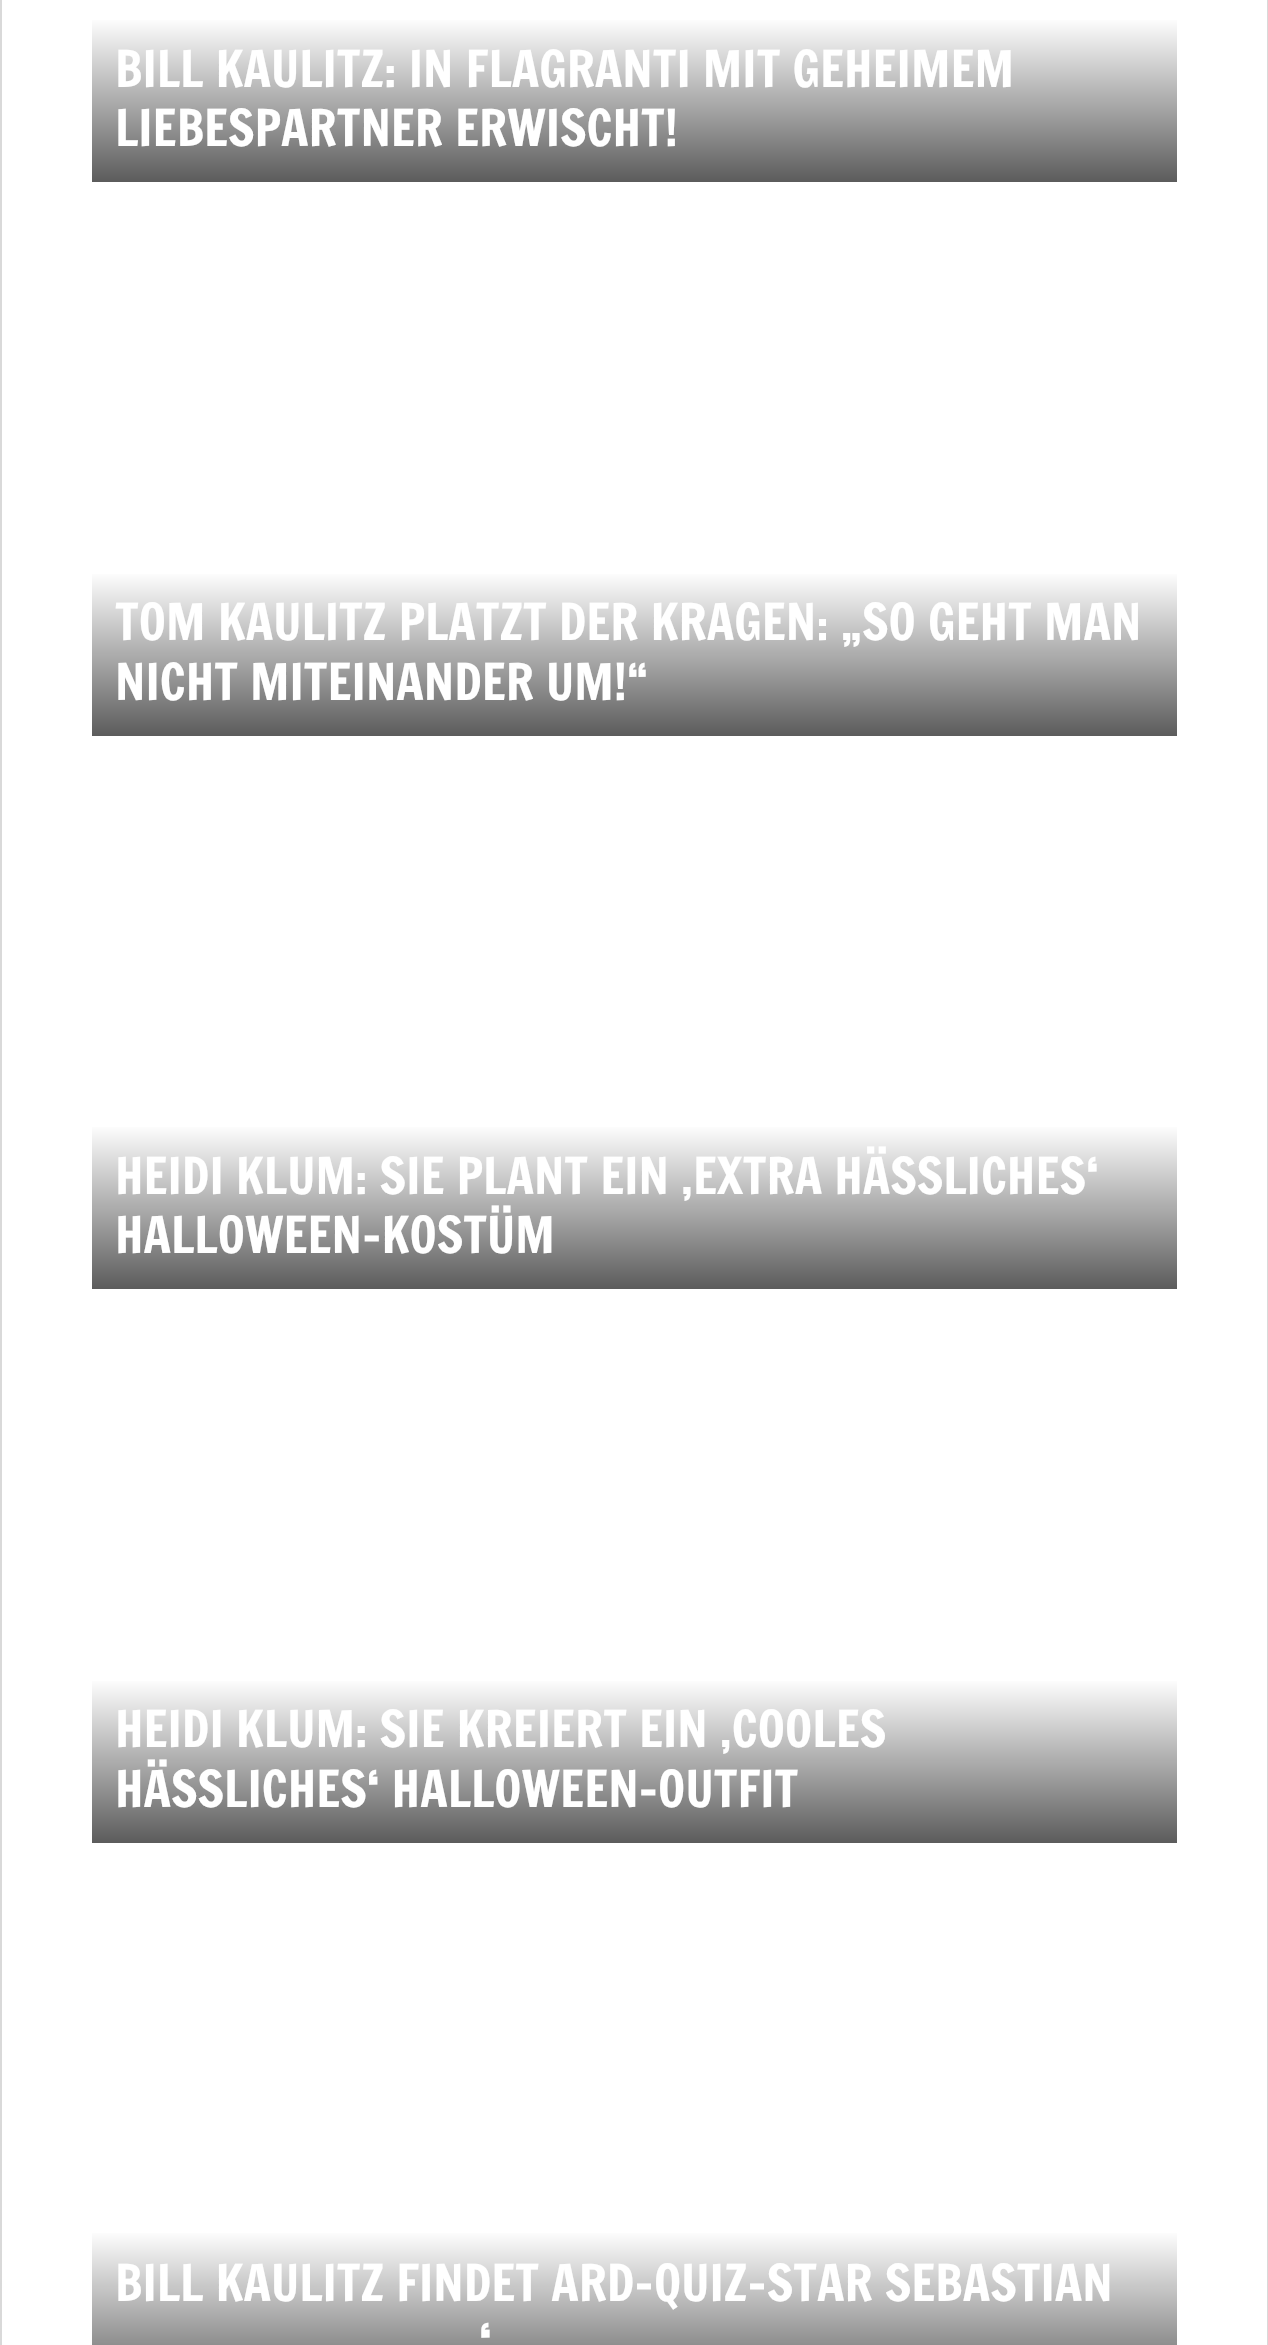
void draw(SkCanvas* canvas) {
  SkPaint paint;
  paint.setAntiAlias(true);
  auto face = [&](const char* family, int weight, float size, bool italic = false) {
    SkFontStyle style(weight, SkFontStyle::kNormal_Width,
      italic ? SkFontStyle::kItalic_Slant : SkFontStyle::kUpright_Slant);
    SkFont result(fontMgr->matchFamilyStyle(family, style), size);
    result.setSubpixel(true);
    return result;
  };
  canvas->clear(0xffffffff);
  paint.setColor(0xffd9d9d9);
  canvas->drawRect(SkRect::MakeXYWH(1267, 0, 1, 2345), paint);
  canvas->drawRect(SkRect::MakeXYWH(0, 0, 2, 2345), paint);
  {
    const SkColor colors[] = {0xff5c5c5c, 0xfffefefe};
    const float stops[] = {0, 1};
    const SkPoint ends[] = {{635, 182}, {635, 18}};
    paint.setShader(SkGradientShader::MakeLinear(ends, colors, stops, 2, SkTileMode::kClamp));
    paint.setAlpha(255);
  }
  canvas->drawRect(SkRect::MakeXYWH(92, 20, 1085, 162), paint);
  {
    const SkColor colors[] = {0xff5c5c5c, 0xfffefefe};
    const float stops[] = {0, 1};
    const SkPoint ends[] = {{635, 736}, {635, 572}};
    paint.setShader(SkGradientShader::MakeLinear(ends, colors, stops, 2, SkTileMode::kClamp));
    paint.setAlpha(255);
  }
  canvas->drawRect(SkRect::MakeXYWH(92, 574, 1085, 162), paint);
  {
    const SkColor colors[] = {0xff5c5c5c, 0xfffefefe};
    const float stops[] = {0, 1};
    const SkPoint ends[] = {{635, 1289}, {635, 1125}};
    paint.setShader(SkGradientShader::MakeLinear(ends, colors, stops, 2, SkTileMode::kClamp));
    paint.setAlpha(255);
  }
  canvas->drawRect(SkRect::MakeXYWH(92, 1127, 1085, 162), paint);
  {
    const SkColor colors[] = {0xff5c5c5c, 0xfffefefe};
    const float stops[] = {0, 1};
    const SkPoint ends[] = {{635, 1843}, {635, 1679}};
    paint.setShader(SkGradientShader::MakeLinear(ends, colors, stops, 2, SkTileMode::kClamp));
    paint.setAlpha(255);
  }
  canvas->drawRect(SkRect::MakeXYWH(92, 1681, 1085, 162), paint);
  {
    const SkColor colors[] = {0xff5c5c5c, 0xfffdfdfd};
    const float stops[] = {0, 1};
    const SkPoint ends[] = {{635, 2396}, {635, 2232}};
    paint.setShader(SkGradientShader::MakeLinear(ends, colors, stops, 2, SkTileMode::kClamp));
    paint.setAlpha(255);
  }
  canvas->drawRect(SkRect::MakeXYWH(92, 2233, 1085, 112), paint);
  auto f0 = face("Francois One", 400, 49.75f);
  paint.setShader(nullptr);
  paint.setColor(0xffffffff);
  {
    const struct { const char* s; float x, y; } items[] = {
      {"BILL KAULITZ: IN FLAGRANTI MIT GEHEIMEM", 115, 87},
      {"LIEBESPARTNER ERWISCHT!", 115, 146},
      {"TOM KAULITZ PLATZT DER KRAGEN: „SO GEHT MAN", 115, 640},
      {"NICHT MITEINANDER UM!“", 115, 700},
      {"HEIDI KLUM: SIE PLANT EIN ‚EXTRA HÄSSLICHES‘", 115, 1194},
      {"HALLOWEEN-KOSTÜM", 115, 1253},
      {"HEIDI KLUM: SIE KREIERT EIN ‚COOLES", 115, 1747},
      {"HÄSSLICHES‘ HALLOWEEN-OUTFIT", 115, 1807},
      {"BILL KAULITZ FINDET ARD-QUIZ-STAR SEBASTIAN", 115, 2301},
      {"‘", 479, 2360},
    };
    for (auto [s, x, y] : items) {
      canvas->drawString(s, x, y, f0, paint);
    }
  }
}
